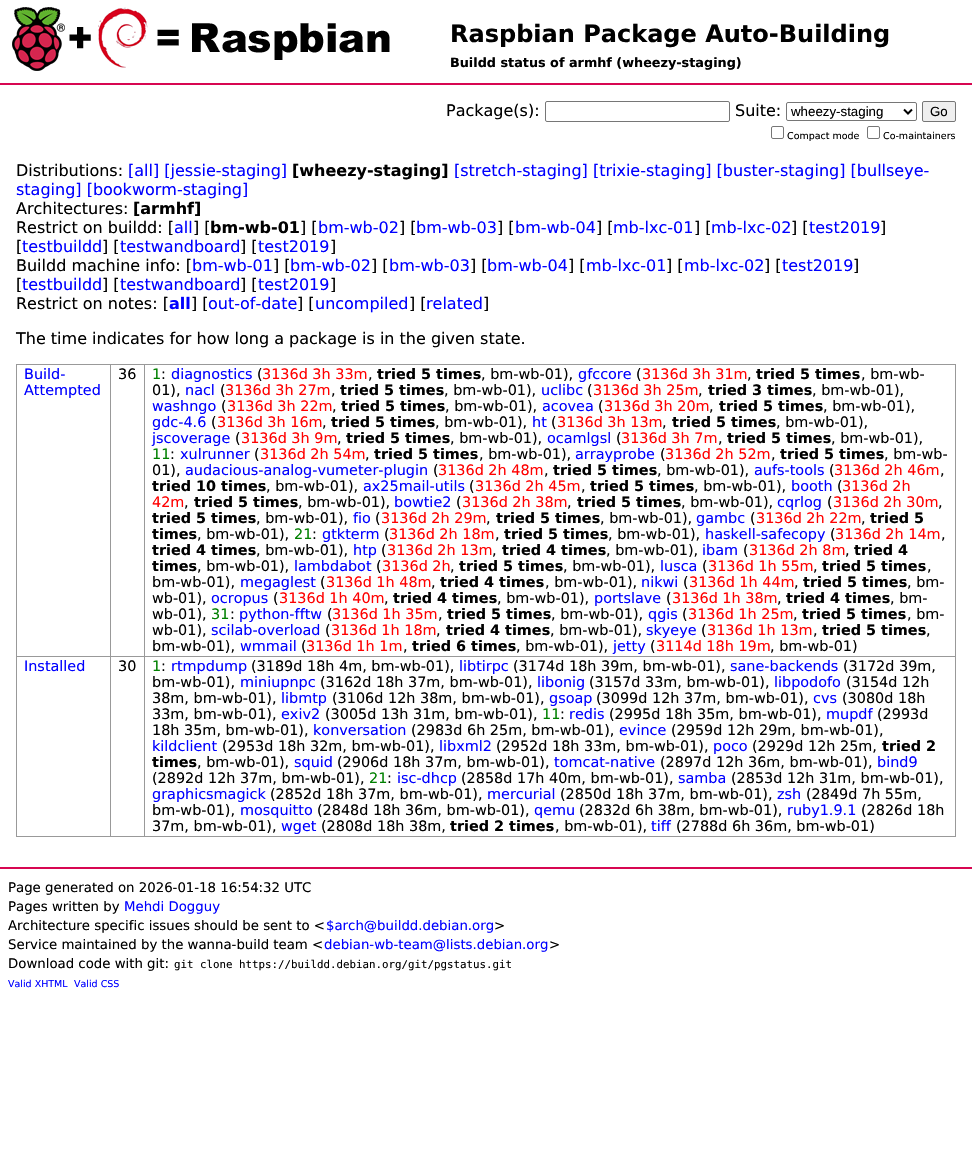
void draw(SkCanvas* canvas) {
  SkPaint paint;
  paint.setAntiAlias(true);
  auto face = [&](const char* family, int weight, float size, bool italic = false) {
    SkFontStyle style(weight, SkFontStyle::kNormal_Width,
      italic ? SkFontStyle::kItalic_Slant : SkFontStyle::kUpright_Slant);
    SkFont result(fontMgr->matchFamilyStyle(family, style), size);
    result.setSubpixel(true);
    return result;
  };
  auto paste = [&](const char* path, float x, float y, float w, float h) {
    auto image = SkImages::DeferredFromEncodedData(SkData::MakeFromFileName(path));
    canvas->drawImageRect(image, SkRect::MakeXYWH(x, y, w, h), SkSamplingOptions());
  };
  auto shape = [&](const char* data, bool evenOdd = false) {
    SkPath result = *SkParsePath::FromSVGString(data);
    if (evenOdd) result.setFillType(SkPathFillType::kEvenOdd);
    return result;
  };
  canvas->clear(0xffffffff);
  paste("img/1.png", 12, 7, 378, 64);
  paint.setColor(0xffd70751);
  canvas->drawRect(SkRect::MakeXYWH(0, 83, 972, 2), paint);
  paint.setStroke(true);
  paint.setStrokeWidth(1);
  paint.setColor(0xff767676);
  canvas->drawRoundRect(SkRect::MakeXYWH(545.5f, 101.5f, 184, 20), 1.5f, 1.5f, paint);
  canvas->drawRoundRect(SkRect::MakeXYWH(786.5f, 102.5f, 130, 18), 1.5f, 1.5f, paint);
  paint.setStrokeWidth(2);
  paint.setColor(0xff000000);
  canvas->drawPath(shape("M904 109.5L908 113.5L912 109.5"), paint);
  paint.setStroke(false);
  paint.setColor(0xffefefef);
  canvas->drawRoundRect(SkRect::MakeXYWH(922.5f, 101.5f, 33, 20), 1.5f, 1.5f, paint);
  paint.setStroke(true);
  paint.setStrokeWidth(1);
  paint.setColor(0xff767676);
  canvas->drawRoundRect(SkRect::MakeXYWH(922.5f, 101.5f, 33, 20), 1.5f, 1.5f, paint);
  canvas->drawRoundRect(SkRect::MakeXYWH(771.5f, 126.5f, 12, 12), 1.5f, 1.5f, paint);
  canvas->drawRoundRect(SkRect::MakeXYWH(867.5f, 126.5f, 12, 12), 1.5f, 1.5f, paint);
  paint.setStroke(false);
  {
    const struct { float x, y, w, h; SkColor color; } items[] = {
      {16, 364, 940, 1, 0xff999999},
      {955, 364, 1, 473, 0xff999999},
      {16, 836, 940, 1, 0xff999999},
      {16, 364, 1, 473, 0xff999999},
      {144, 656, 812, 1, 0xff999999},
      {144, 656, 1, 181, 0xff999999},
      {110, 656, 35, 1, 0xff999999},
      {110, 656, 1, 181, 0xff999999},
      {16, 656, 95, 1, 0xff999999},
      {110, 364, 1, 293, 0xff999999},
      {144, 364, 1, 293, 0xff999999},
      {0, 867, 972, 2, 0xffd70751},
    };
    for (auto [x, y, w, h, color] : items) {
      paint.setColor(color);
      canvas->drawRect(SkRect::MakeXYWH(x, y, w, h), paint);
    }
  }
  auto f0 = face("DejaVu Sans", 700, 24);
  paint.setColor(0xff000000);
  canvas->drawString("Raspbian Package Auto-Building", 450, 42, f0, paint);
  auto f1 = face("DejaVu Sans", 700, 12.8f);
  canvas->drawString("Buildd status of armhf (wheezy-staging)", 450, 67, f1, paint);
  auto f2 = face("DejaVu Sans", 400, 16);
  canvas->drawString("Package(s):", 446, 116, f2, paint);
  canvas->drawString("Suite:", 735, 116, f2, paint);
  auto f3 = face("Liberation Sans", 400, 13.3f);
  canvas->drawString("wheezy-staging", 791, 116, f3, paint);
  canvas->drawString("Go", 930, 116, f3, paint);
  auto f4 = face("DejaVu Sans", 400, 9.5f);
  canvas->drawString("Compact mode", 787, 139, f4, paint);
  canvas->drawString("Co-maintainers", 883, 139, f4, paint);
  canvas->drawString("Distributions:", 16, 176, f2, paint);
  paint.setColor(0xff0000ff);
  canvas->drawString("[all] [jessie-staging]", 128, 176, f2, paint);
  auto f5 = face("DejaVu Sans", 700, 16);
  paint.setColor(0xff000000);
  canvas->drawString("[wheezy-staging]", 292, 176, f5, paint);
  paint.setColor(0xff0000ff);
  canvas->drawString("[stretch-staging] [trixie-staging] [buster-staging] [bullseye-", 454, 176, f2, paint);
  canvas->drawString("staging] [bookworm-staging]", 16, 195, f2, paint);
  paint.setColor(0xff000000);
  canvas->drawString("Architectures:", 16, 214, f2, paint);
  canvas->drawString("[armhf]", 133, 214, f5, paint);
  canvas->drawString("Restrict on buildd: [", 16, 233, f2, paint);
  paint.setColor(0xff0000ff);
  canvas->drawString("all", 174, 233, f2, paint);
  paint.setColor(0xff000000);
  canvas->drawString("] [", 193, 233, f2, paint);
  canvas->drawString("bm-wb-01", 210, 233, f5, paint);
  canvas->drawString("] [", 300, 233, f2, paint);
  paint.setColor(0xff0000ff);
  canvas->drawString("bm-wb-02", 318, 233, f2, paint);
  paint.setColor(0xff000000);
  canvas->drawString("] [", 399, 233, f2, paint);
  paint.setColor(0xff0000ff);
  canvas->drawString("bm-wb-03", 416, 233, f2, paint);
  paint.setColor(0xff000000);
  canvas->drawString("] [", 497, 233, f2, paint);
  paint.setColor(0xff0000ff);
  canvas->drawString("bm-wb-04", 515, 233, f2, paint);
  paint.setColor(0xff000000);
  canvas->drawString("] [", 596, 233, f2, paint);
  paint.setColor(0xff0000ff);
  canvas->drawString("mb-lxc-01", 613, 233, f2, paint);
  paint.setColor(0xff000000);
  canvas->drawString("] [", 694, 233, f2, paint);
  paint.setColor(0xff0000ff);
  canvas->drawString("mb-lxc-02", 711, 233, f2, paint);
  paint.setColor(0xff000000);
  canvas->drawString("] [", 791, 233, f2, paint);
  paint.setColor(0xff0000ff);
  canvas->drawString("test2019", 809, 233, f2, paint);
  paint.setColor(0xff000000);
  canvas->drawString("]", 880, 233, f2, paint);
  canvas->drawString("[", 16, 252, f2, paint);
  paint.setColor(0xff0000ff);
  canvas->drawString("testbuildd", 22, 252, f2, paint);
  paint.setColor(0xff000000);
  canvas->drawString("] [", 102, 252, f2, paint);
  paint.setColor(0xff0000ff);
  canvas->drawString("testwandboard", 120, 252, f2, paint);
  paint.setColor(0xff000000);
  canvas->drawString("] [", 240, 252, f2, paint);
  paint.setColor(0xff0000ff);
  canvas->drawString("test2019", 258, 252, f2, paint);
  paint.setColor(0xff000000);
  canvas->drawString("]", 330, 252, f2, paint);
  canvas->drawString("Buildd machine info: [", 16, 271, f2, paint);
  paint.setColor(0xff0000ff);
  canvas->drawString("bm-wb-01", 192, 271, f2, paint);
  paint.setColor(0xff000000);
  canvas->drawString("] [", 273, 271, f2, paint);
  paint.setColor(0xff0000ff);
  canvas->drawString("bm-wb-02", 290, 271, f2, paint);
  paint.setColor(0xff000000);
  canvas->drawString("] [", 371, 271, f2, paint);
  paint.setColor(0xff0000ff);
  canvas->drawString("bm-wb-03", 389, 271, f2, paint);
  paint.setColor(0xff000000);
  canvas->drawString("] [", 470, 271, f2, paint);
  paint.setColor(0xff0000ff);
  canvas->drawString("bm-wb-04", 487, 271, f2, paint);
  paint.setColor(0xff000000);
  canvas->drawString("] [", 568, 271, f2, paint);
  paint.setColor(0xff0000ff);
  canvas->drawString("mb-lxc-01", 586, 271, f2, paint);
  paint.setColor(0xff000000);
  canvas->drawString("] [", 666, 271, f2, paint);
  paint.setColor(0xff0000ff);
  canvas->drawString("mb-lxc-02", 684, 271, f2, paint);
  paint.setColor(0xff000000);
  canvas->drawString("] [", 764, 271, f2, paint);
  paint.setColor(0xff0000ff);
  canvas->drawString("test2019", 782, 271, f2, paint);
  paint.setColor(0xff000000);
  canvas->drawString("]", 853, 271, f2, paint);
  canvas->drawString("[", 16, 290, f2, paint);
  paint.setColor(0xff0000ff);
  canvas->drawString("testbuildd", 22, 290, f2, paint);
  paint.setColor(0xff000000);
  canvas->drawString("] [", 102, 290, f2, paint);
  paint.setColor(0xff0000ff);
  canvas->drawString("testwandboard", 120, 290, f2, paint);
  paint.setColor(0xff000000);
  canvas->drawString("] [", 240, 290, f2, paint);
  paint.setColor(0xff0000ff);
  canvas->drawString("test2019", 258, 290, f2, paint);
  paint.setColor(0xff000000);
  canvas->drawString("]", 330, 290, f2, paint);
  canvas->drawString("Restrict on notes: [", 16, 309, f2, paint);
  paint.setColor(0xff0000ff);
  canvas->drawString("all", 169, 309, f5, paint);
  paint.setColor(0xff000000);
  canvas->drawString("] [", 191, 309, f2, paint);
  paint.setColor(0xff0000ff);
  canvas->drawString("out-of-date", 208, 309, f2, paint);
  paint.setColor(0xff000000);
  canvas->drawString("] [", 297, 309, f2, paint);
  paint.setColor(0xff0000ff);
  canvas->drawString("uncompiled", 315, 309, f2, paint);
  paint.setColor(0xff000000);
  canvas->drawString("] [", 409, 309, f2, paint);
  paint.setColor(0xff0000ff);
  canvas->drawString("related", 426, 309, f2, paint);
  paint.setColor(0xff000000);
  canvas->drawString("]", 483, 309, f2, paint);
  canvas->drawString("The time indicates for how long a package is in the given state.", 16, 344, f2, paint);
  auto f6 = face("DejaVu Sans", 400, 14.4f);
  paint.setColor(0xff0000ff);
  canvas->drawString("Build-", 24, 379, f6, paint);
  canvas->drawString("Attempted", 24, 395, f6, paint);
  paint.setColor(0xff000000);
  canvas->drawString("36", 118, 379, f6, paint);
  paint.setColor(0xff008000);
  canvas->drawString("1", 152, 379, f6, paint);
  paint.setColor(0xff000000);
  canvas->drawString(":", 161, 379, f6, paint);
  paint.setColor(0xff0000ff);
  canvas->drawString("diagnostics", 171, 379, f6, paint);
  paint.setColor(0xff000000);
  canvas->drawString("(", 257, 379, f6, paint);
  paint.setColor(0xffff0000);
  canvas->drawString("3136d 3h 33m", 262, 379, f6, paint);
  paint.setColor(0xff000000);
  canvas->drawString(",", 368, 379, f6, paint);
  auto f7 = face("DejaVu Sans", 700, 14.4f);
  canvas->drawString("tried 5 times", 377, 379, f7, paint);
  canvas->drawString(", bm-wb-01),", 481, 379, f6, paint);
  paint.setColor(0xff0000ff);
  canvas->drawString("gfccore", 578, 379, f6, paint);
  paint.setColor(0xff000000);
  canvas->drawString("(", 636, 379, f6, paint);
  paint.setColor(0xffff0000);
  canvas->drawString("3136d 3h 31m", 642, 379, f6, paint);
  paint.setColor(0xff000000);
  canvas->drawString(",", 747, 379, f6, paint);
  canvas->drawString("tried 5 times", 756, 379, f7, paint);
  canvas->drawString(", bm-wb-", 861, 379, f6, paint);
  canvas->drawString("01),", 152, 395, f6, paint);
  paint.setColor(0xff0000ff);
  canvas->drawString("nacl", 185, 395, f6, paint);
  paint.setColor(0xff000000);
  canvas->drawString("(", 220, 395, f6, paint);
  paint.setColor(0xffff0000);
  canvas->drawString("3136d 3h 27m", 225, 395, f6, paint);
  paint.setColor(0xff000000);
  canvas->drawString(",", 331, 395, f6, paint);
  canvas->drawString("tried 5 times", 340, 395, f7, paint);
  canvas->drawString(", bm-wb-01),", 444, 395, f6, paint);
  paint.setColor(0xff0000ff);
  canvas->drawString("uclibc", 541, 395, f6, paint);
  paint.setColor(0xff000000);
  canvas->drawString("(", 587, 395, f6, paint);
  paint.setColor(0xffff0000);
  canvas->drawString("3136d 3h 25m", 593, 395, f6, paint);
  paint.setColor(0xff000000);
  canvas->drawString(",", 698, 395, f6, paint);
  canvas->drawString("tried 3 times", 708, 395, f7, paint);
  canvas->drawString(", bm-wb-01),", 812, 395, f6, paint);
  paint.setColor(0xff0000ff);
  canvas->drawString("washngo", 152, 411, f6, paint);
  paint.setColor(0xff000000);
  canvas->drawString("(", 221, 411, f6, paint);
  paint.setColor(0xffff0000);
  canvas->drawString("3136d 3h 22m", 227, 411, f6, paint);
  paint.setColor(0xff000000);
  canvas->drawString(",", 332, 411, f6, paint);
  canvas->drawString("tried 5 times", 341, 411, f7, paint);
  canvas->drawString(", bm-wb-01),", 445, 411, f6, paint);
  paint.setColor(0xff0000ff);
  canvas->drawString("acovea", 542, 411, f6, paint);
  paint.setColor(0xff000000);
  canvas->drawString("(", 598, 411, f6, paint);
  paint.setColor(0xffff0000);
  canvas->drawString("3136d 3h 20m", 604, 411, f6, paint);
  paint.setColor(0xff000000);
  canvas->drawString(",", 709, 411, f6, paint);
  canvas->drawString("tried 5 times", 719, 411, f7, paint);
  canvas->drawString(", bm-wb-01),", 823, 411, f6, paint);
  paint.setColor(0xff0000ff);
  canvas->drawString("gdc-4.6", 152, 427, f6, paint);
  paint.setColor(0xff000000);
  canvas->drawString("(", 211, 427, f6, paint);
  paint.setColor(0xffff0000);
  canvas->drawString("3136d 3h 16m", 217, 427, f6, paint);
  paint.setColor(0xff000000);
  canvas->drawString(",", 322, 427, f6, paint);
  canvas->drawString("tried 5 times", 331, 427, f7, paint);
  canvas->drawString(", bm-wb-01),", 435, 427, f6, paint);
  paint.setColor(0xff0000ff);
  canvas->drawString("ht", 532, 427, f6, paint);
  paint.setColor(0xff000000);
  canvas->drawString("(", 551, 427, f6, paint);
  paint.setColor(0xffff0000);
  canvas->drawString("3136d 3h 13m", 557, 427, f6, paint);
  paint.setColor(0xff000000);
  canvas->drawString(",", 662, 427, f6, paint);
  canvas->drawString("tried 5 times", 672, 427, f7, paint);
  canvas->drawString(", bm-wb-01),", 776, 427, f6, paint);
  paint.setColor(0xff0000ff);
  canvas->drawString("jscoverage", 152, 443, f6, paint);
  paint.setColor(0xff000000);
  canvas->drawString("(", 235, 443, f6, paint);
  paint.setColor(0xffff0000);
  canvas->drawString("3136d 3h 9m", 241, 443, f6, paint);
  paint.setColor(0xff000000);
  canvas->drawString(",", 337, 443, f6, paint);
  canvas->drawString("tried 5 times", 346, 443, f7, paint);
  canvas->drawString(", bm-wb-01),", 450, 443, f6, paint);
  paint.setColor(0xff0000ff);
  canvas->drawString("ocamlgsl", 547, 443, f6, paint);
  paint.setColor(0xff000000);
  canvas->drawString("(", 616, 443, f6, paint);
  paint.setColor(0xffff0000);
  canvas->drawString("3136d 3h 7m", 621, 443, f6, paint);
  paint.setColor(0xff000000);
  canvas->drawString(",", 718, 443, f6, paint);
  canvas->drawString("tried 5 times", 727, 443, f7, paint);
  canvas->drawString(", bm-wb-01),", 831, 443, f6, paint);
  paint.setColor(0xff008000);
  canvas->drawString("11", 152, 459, f6, paint);
  paint.setColor(0xff000000);
  canvas->drawString(":", 170, 459, f6, paint);
  paint.setColor(0xff0000ff);
  canvas->drawString("xulrunner", 180, 459, f6, paint);
  paint.setColor(0xff000000);
  canvas->drawString("(", 254, 459, f6, paint);
  paint.setColor(0xffff0000);
  canvas->drawString("3136d 2h 54m", 260, 459, f6, paint);
  paint.setColor(0xff000000);
  canvas->drawString(",", 365, 459, f6, paint);
  canvas->drawString("tried 5 times", 374, 459, f7, paint);
  canvas->drawString(", bm-wb-01),", 479, 459, f6, paint);
  paint.setColor(0xff0000ff);
  canvas->drawString("arrayprobe", 575, 459, f6, paint);
  paint.setColor(0xff000000);
  canvas->drawString("(", 660, 459, f6, paint);
  paint.setColor(0xffff0000);
  canvas->drawString("3136d 2h 52m", 665, 459, f6, paint);
  paint.setColor(0xff000000);
  canvas->drawString(",", 771, 459, f6, paint);
  canvas->drawString("tried 5 times", 780, 459, f7, paint);
  canvas->drawString(", bm-wb-", 884, 459, f6, paint);
  canvas->drawString("01),", 152, 475, f6, paint);
  paint.setColor(0xff0000ff);
  canvas->drawString("audacious-analog-vumeter-plugin", 185, 475, f6, paint);
  paint.setColor(0xff000000);
  canvas->drawString("(", 433, 475, f6, paint);
  paint.setColor(0xffff0000);
  canvas->drawString("3136d 2h 48m", 438, 475, f6, paint);
  paint.setColor(0xff000000);
  canvas->drawString(",", 544, 475, f6, paint);
  canvas->drawString("tried 5 times", 553, 475, f7, paint);
  canvas->drawString(", bm-wb-01),", 657, 475, f6, paint);
  paint.setColor(0xff0000ff);
  canvas->drawString("aufs-tools", 754, 475, f6, paint);
  paint.setColor(0xff000000);
  canvas->drawString("(", 829, 475, f6, paint);
  paint.setColor(0xffff0000);
  canvas->drawString("3136d 2h 46m", 834, 475, f6, paint);
  paint.setColor(0xff000000);
  canvas->drawString(",", 940, 475, f6, paint);
  canvas->drawString("tried 10 times", 152, 491, f7, paint);
  canvas->drawString(", bm-wb-01),", 266, 491, f6, paint);
  paint.setColor(0xff0000ff);
  canvas->drawString("ax25mail-utils", 363, 491, f6, paint);
  paint.setColor(0xff000000);
  canvas->drawString("(", 469, 491, f6, paint);
  paint.setColor(0xffff0000);
  canvas->drawString("3136d 2h 45m", 475, 491, f6, paint);
  paint.setColor(0xff000000);
  canvas->drawString(",", 581, 491, f6, paint);
  canvas->drawString("tried 5 times", 590, 491, f7, paint);
  canvas->drawString(", bm-wb-01),", 694, 491, f6, paint);
  paint.setColor(0xff0000ff);
  canvas->drawString("booth", 791, 491, f6, paint);
  paint.setColor(0xff000000);
  canvas->drawString("(", 837, 491, f6, paint);
  paint.setColor(0xffff0000);
  canvas->drawString("3136d 2h", 842, 491, f6, paint);
  canvas->drawString("42m", 152, 507, f6, paint);
  paint.setColor(0xff000000);
  canvas->drawString(",", 184, 507, f6, paint);
  canvas->drawString("tried 5 times", 194, 507, f7, paint);
  canvas->drawString(", bm-wb-01),", 298, 507, f6, paint);
  paint.setColor(0xff0000ff);
  canvas->drawString("bowtie2", 394, 507, f6, paint);
  paint.setColor(0xff000000);
  canvas->drawString("(", 456, 507, f6, paint);
  paint.setColor(0xffff0000);
  canvas->drawString("3136d 2h 38m", 462, 507, f6, paint);
  paint.setColor(0xff000000);
  canvas->drawString(",", 567, 507, f6, paint);
  canvas->drawString("tried 5 times", 577, 507, f7, paint);
  canvas->drawString(", bm-wb-01),", 681, 507, f6, paint);
  paint.setColor(0xff0000ff);
  canvas->drawString("cqrlog", 777, 507, f6, paint);
  paint.setColor(0xff000000);
  canvas->drawString("(", 827, 507, f6, paint);
  paint.setColor(0xffff0000);
  canvas->drawString("3136d 2h 30m", 833, 507, f6, paint);
  paint.setColor(0xff000000);
  canvas->drawString(",", 938, 507, f6, paint);
  canvas->drawString("tried 5 times", 152, 523, f7, paint);
  canvas->drawString(", bm-wb-01),", 256, 523, f6, paint);
  paint.setColor(0xff0000ff);
  canvas->drawString("fio", 353, 523, f6, paint);
  paint.setColor(0xff000000);
  canvas->drawString("(", 375, 523, f6, paint);
  paint.setColor(0xffff0000);
  canvas->drawString("3136d 2h 29m", 381, 523, f6, paint);
  paint.setColor(0xff000000);
  canvas->drawString(",", 486, 523, f6, paint);
  canvas->drawString("tried 5 times", 496, 523, f7, paint);
  canvas->drawString(", bm-wb-01),", 600, 523, f6, paint);
  paint.setColor(0xff0000ff);
  canvas->drawString("gambc", 696, 523, f6, paint);
  paint.setColor(0xff000000);
  canvas->drawString("(", 750, 523, f6, paint);
  paint.setColor(0xffff0000);
  canvas->drawString("3136d 2h 22m", 756, 523, f6, paint);
  paint.setColor(0xff000000);
  canvas->drawString(",", 861, 523, f6, paint);
  canvas->drawString("tried 5", 870, 523, f7, paint);
  canvas->drawString("times", 152, 539, f7, paint);
  canvas->drawString(", bm-wb-01),", 197, 539, f6, paint);
  paint.setColor(0xff008000);
  canvas->drawString("21", 294, 539, f6, paint);
  paint.setColor(0xff000000);
  canvas->drawString(":", 312, 539, f6, paint);
  paint.setColor(0xff0000ff);
  canvas->drawString("gtkterm", 322, 539, f6, paint);
  paint.setColor(0xff000000);
  canvas->drawString("(", 384, 539, f6, paint);
  paint.setColor(0xffff0000);
  canvas->drawString("3136d 2h 18m", 389, 539, f6, paint);
  paint.setColor(0xff000000);
  canvas->drawString(",", 495, 539, f6, paint);
  canvas->drawString("tried 5 times", 504, 539, f7, paint);
  canvas->drawString(", bm-wb-01),", 608, 539, f6, paint);
  paint.setColor(0xff0000ff);
  canvas->drawString("haskell-safecopy", 705, 539, f6, paint);
  paint.setColor(0xff000000);
  canvas->drawString("(", 830, 539, f6, paint);
  paint.setColor(0xffff0000);
  canvas->drawString("3136d 2h 14m", 835, 539, f6, paint);
  paint.setColor(0xff000000);
  canvas->drawString(",", 941, 539, f6, paint);
  canvas->drawString("tried 4 times", 152, 555, f7, paint);
  canvas->drawString(", bm-wb-01),", 256, 555, f6, paint);
  paint.setColor(0xff0000ff);
  canvas->drawString("htp", 353, 555, f6, paint);
  paint.setColor(0xff000000);
  canvas->drawString("(", 381, 555, f6, paint);
  paint.setColor(0xffff0000);
  canvas->drawString("3136d 2h 13m", 387, 555, f6, paint);
  paint.setColor(0xff000000);
  canvas->drawString(",", 492, 555, f6, paint);
  canvas->drawString("tried 4 times", 502, 555, f7, paint);
  canvas->drawString(", bm-wb-01),", 606, 555, f6, paint);
  paint.setColor(0xff0000ff);
  canvas->drawString("ibam", 702, 555, f6, paint);
  paint.setColor(0xff000000);
  canvas->drawString("(", 743, 555, f6, paint);
  paint.setColor(0xffff0000);
  canvas->drawString("3136d 2h 8m", 749, 555, f6, paint);
  paint.setColor(0xff000000);
  canvas->drawString(",", 845, 555, f6, paint);
  canvas->drawString("tried 4", 854, 555, f7, paint);
  canvas->drawString("times", 152, 571, f7, paint);
  canvas->drawString(", bm-wb-01),", 197, 571, f6, paint);
  paint.setColor(0xff0000ff);
  canvas->drawString("lambdabot", 294, 571, f6, paint);
  paint.setColor(0xff000000);
  canvas->drawString("(", 376, 571, f6, paint);
  paint.setColor(0xffff0000);
  canvas->drawString("3136d 2h", 382, 571, f6, paint);
  paint.setColor(0xff000000);
  canvas->drawString(",", 450, 571, f6, paint);
  canvas->drawString("tried 5 times", 459, 571, f7, paint);
  canvas->drawString(", bm-wb-01),", 563, 571, f6, paint);
  paint.setColor(0xff0000ff);
  canvas->drawString("lusca", 660, 571, f6, paint);
  paint.setColor(0xff000000);
  canvas->drawString("(", 702, 571, f6, paint);
  paint.setColor(0xffff0000);
  canvas->drawString("3136d 1h 55m", 708, 571, f6, paint);
  paint.setColor(0xff000000);
  canvas->drawString(",", 813, 571, f6, paint);
  canvas->drawString("tried 5 times", 822, 571, f7, paint);
  canvas->drawString(",", 927, 571, f6, paint);
  canvas->drawString("bm-wb-01),", 152, 587, f6, paint);
  paint.setColor(0xff0000ff);
  canvas->drawString("megaglest", 240, 587, f6, paint);
  paint.setColor(0xff000000);
  canvas->drawString("(", 320, 587, f6, paint);
  paint.setColor(0xffff0000);
  canvas->drawString("3136d 1h 48m", 326, 587, f6, paint);
  paint.setColor(0xff000000);
  canvas->drawString(",", 431, 587, f6, paint);
  canvas->drawString("tried 4 times", 440, 587, f7, paint);
  canvas->drawString(", bm-wb-01),", 545, 587, f6, paint);
  paint.setColor(0xff0000ff);
  canvas->drawString("nikwi", 641, 587, f6, paint);
  paint.setColor(0xff000000);
  canvas->drawString("(", 683, 587, f6, paint);
  paint.setColor(0xffff0000);
  canvas->drawString("3136d 1h 44m", 689, 587, f6, paint);
  paint.setColor(0xff000000);
  canvas->drawString(",", 794, 587, f6, paint);
  canvas->drawString("tried 5 times", 803, 587, f7, paint);
  canvas->drawString(", bm-", 907, 587, f6, paint);
  canvas->drawString("wb-01),", 152, 603, f6, paint);
  paint.setColor(0xff0000ff);
  canvas->drawString("ocropus", 211, 603, f6, paint);
  paint.setColor(0xff000000);
  canvas->drawString("(", 273, 603, f6, paint);
  paint.setColor(0xffff0000);
  canvas->drawString("3136d 1h 40m", 279, 603, f6, paint);
  paint.setColor(0xff000000);
  canvas->drawString(",", 384, 603, f6, paint);
  canvas->drawString("tried 4 times", 393, 603, f7, paint);
  canvas->drawString(", bm-wb-01),", 497, 603, f6, paint);
  paint.setColor(0xff0000ff);
  canvas->drawString("portslave", 594, 603, f6, paint);
  paint.setColor(0xff000000);
  canvas->drawString("(", 666, 603, f6, paint);
  paint.setColor(0xffff0000);
  canvas->drawString("3136d 1h 38m", 672, 603, f6, paint);
  paint.setColor(0xff000000);
  canvas->drawString(",", 777, 603, f6, paint);
  canvas->drawString("tried 4 times", 786, 603, f7, paint);
  canvas->drawString(", bm-", 890, 603, f6, paint);
  canvas->drawString("wb-01),", 152, 619, f6, paint);
  paint.setColor(0xff008000);
  canvas->drawString("31", 211, 619, f6, paint);
  paint.setColor(0xff000000);
  canvas->drawString(":", 230, 619, f6, paint);
  paint.setColor(0xff0000ff);
  canvas->drawString("python-fftw", 239, 619, f6, paint);
  paint.setColor(0xff000000);
  canvas->drawString("(", 327, 619, f6, paint);
  paint.setColor(0xffff0000);
  canvas->drawString("3136d 1h 35m", 332, 619, f6, paint);
  paint.setColor(0xff000000);
  canvas->drawString(",", 438, 619, f6, paint);
  canvas->drawString("tried 5 times", 447, 619, f7, paint);
  canvas->drawString(", bm-wb-01),", 551, 619, f6, paint);
  paint.setColor(0xff0000ff);
  canvas->drawString("qgis", 648, 619, f6, paint);
  paint.setColor(0xff000000);
  canvas->drawString("(", 682, 619, f6, paint);
  paint.setColor(0xffff0000);
  canvas->drawString("3136d 1h 25m", 688, 619, f6, paint);
  paint.setColor(0xff000000);
  canvas->drawString(",", 793, 619, f6, paint);
  canvas->drawString("tried 5 times", 802, 619, f7, paint);
  canvas->drawString(", bm-", 907, 619, f6, paint);
  canvas->drawString("wb-01),", 152, 635, f6, paint);
  paint.setColor(0xff0000ff);
  canvas->drawString("scilab-overload", 211, 635, f6, paint);
  paint.setColor(0xff000000);
  canvas->drawString("(", 325, 635, f6, paint);
  paint.setColor(0xffff0000);
  canvas->drawString("3136d 1h 18m", 331, 635, f6, paint);
  paint.setColor(0xff000000);
  canvas->drawString(",", 436, 635, f6, paint);
  canvas->drawString("tried 4 times", 446, 635, f7, paint);
  canvas->drawString(", bm-wb-01),", 550, 635, f6, paint);
  paint.setColor(0xff0000ff);
  canvas->drawString("skyeye", 646, 635, f6, paint);
  paint.setColor(0xff000000);
  canvas->drawString("(", 701, 635, f6, paint);
  paint.setColor(0xffff0000);
  canvas->drawString("3136d 1h 13m", 707, 635, f6, paint);
  paint.setColor(0xff000000);
  canvas->drawString(",", 813, 635, f6, paint);
  canvas->drawString("tried 5 times", 822, 635, f7, paint);
  canvas->drawString(",", 926, 635, f6, paint);
  canvas->drawString("bm-wb-01),", 152, 651, f6, paint);
  paint.setColor(0xff0000ff);
  canvas->drawString("wmmail", 240, 651, f6, paint);
  paint.setColor(0xff000000);
  canvas->drawString("(", 301, 651, f6, paint);
  paint.setColor(0xffff0000);
  canvas->drawString("3136d 1h 1m", 306, 651, f6, paint);
  paint.setColor(0xff000000);
  canvas->drawString(",", 403, 651, f6, paint);
  canvas->drawString("tried 6 times", 412, 651, f7, paint);
  canvas->drawString(", bm-wb-01),", 516, 651, f6, paint);
  paint.setColor(0xff0000ff);
  canvas->drawString("jetty", 613, 651, f6, paint);
  paint.setColor(0xff000000);
  canvas->drawString("(", 650, 651, f6, paint);
  paint.setColor(0xffff0000);
  canvas->drawString("3114d 18h 19m", 656, 651, f6, paint);
  paint.setColor(0xff000000);
  canvas->drawString(", bm-wb-01)", 770, 651, f6, paint);
  paint.setColor(0xff0000ff);
  canvas->drawString("Installed", 24, 671, f6, paint);
  paint.setColor(0xff000000);
  canvas->drawString("30", 118, 671, f6, paint);
  paint.setColor(0xff008000);
  canvas->drawString("1", 152, 671, f6, paint);
  paint.setColor(0xff000000);
  canvas->drawString(":", 161, 671, f6, paint);
  paint.setColor(0xff0000ff);
  canvas->drawString("rtmpdump", 171, 671, f6, paint);
  paint.setColor(0xff000000);
  canvas->drawString("(3189d 18h 4m, bm-wb-01),", 251, 671, f6, paint);
  paint.setColor(0xff0000ff);
  canvas->drawString("libtirpc", 459, 671, f6, paint);
  paint.setColor(0xff000000);
  canvas->drawString("(3174d 18h 39m, bm-wb-01),", 513, 671, f6, paint);
  paint.setColor(0xff0000ff);
  canvas->drawString("sane-backends", 730, 671, f6, paint);
  paint.setColor(0xff000000);
  canvas->drawString("(3172d 39m,", 843, 671, f6, paint);
  canvas->drawString("bm-wb-01),", 152, 687, f6, paint);
  paint.setColor(0xff0000ff);
  canvas->drawString("miniupnpc", 240, 687, f6, paint);
  paint.setColor(0xff000000);
  canvas->drawString("(3162d 18h 37m, bm-wb-01),", 320, 687, f6, paint);
  paint.setColor(0xff0000ff);
  canvas->drawString("libonig", 537, 687, f6, paint);
  paint.setColor(0xff000000);
  canvas->drawString("(3157d 33m, bm-wb-01),", 589, 687, f6, paint);
  paint.setColor(0xff0000ff);
  canvas->drawString("libpodofo", 774, 687, f6, paint);
  paint.setColor(0xff000000);
  canvas->drawString("(3154d 12h", 846, 687, f6, paint);
  canvas->drawString("38m, bm-wb-01),", 152, 703, f6, paint);
  paint.setColor(0xff0000ff);
  canvas->drawString("libmtp", 281, 703, f6, paint);
  paint.setColor(0xff000000);
  canvas->drawString("(3106d 12h 38m, bm-wb-01),", 332, 703, f6, paint);
  paint.setColor(0xff0000ff);
  canvas->drawString("gsoap", 549, 703, f6, paint);
  paint.setColor(0xff000000);
  canvas->drawString("(3099d 12h 37m, bm-wb-01),", 596, 703, f6, paint);
  paint.setColor(0xff0000ff);
  canvas->drawString("cvs", 813, 703, f6, paint);
  paint.setColor(0xff000000);
  canvas->drawString("(3080d 18h", 842, 703, f6, paint);
  canvas->drawString("33m, bm-wb-01),", 152, 719, f6, paint);
  paint.setColor(0xff0000ff);
  canvas->drawString("exiv2", 281, 719, f6, paint);
  paint.setColor(0xff000000);
  canvas->drawString("(3005d 13h 31m, bm-wb-01),", 325, 719, f6, paint);
  paint.setColor(0xff008000);
  canvas->drawString("11", 542, 719, f6, paint);
  paint.setColor(0xff000000);
  canvas->drawString(":", 560, 719, f6, paint);
  paint.setColor(0xff0000ff);
  canvas->drawString("redis", 569, 719, f6, paint);
  paint.setColor(0xff000000);
  canvas->drawString("(2995d 18h 35m, bm-wb-01),", 609, 719, f6, paint);
  paint.setColor(0xff0000ff);
  canvas->drawString("mupdf", 826, 719, f6, paint);
  paint.setColor(0xff000000);
  canvas->drawString("(2993d", 877, 719, f6, paint);
  canvas->drawString("18h 35m, bm-wb-01),", 152, 735, f6, paint);
  paint.setColor(0xff0000ff);
  canvas->drawString("konversation", 313, 735, f6, paint);
  paint.setColor(0xff000000);
  canvas->drawString("(2983d 6h 25m, bm-wb-01),", 411, 735, f6, paint);
  paint.setColor(0xff0000ff);
  canvas->drawString("evince", 619, 735, f6, paint);
  paint.setColor(0xff000000);
  canvas->drawString("(2959d 12h 29m, bm-wb-01),", 671, 735, f6, paint);
  paint.setColor(0xff0000ff);
  canvas->drawString("kildclient", 152, 751, f6, paint);
  paint.setColor(0xff000000);
  canvas->drawString("(2953d 18h 32m, bm-wb-01),", 222, 751, f6, paint);
  paint.setColor(0xff0000ff);
  canvas->drawString("libxml2", 439, 751, f6, paint);
  paint.setColor(0xff000000);
  canvas->drawString("(2952d 18h 33m, bm-wb-01),", 496, 751, f6, paint);
  paint.setColor(0xff0000ff);
  canvas->drawString("poco", 713, 751, f6, paint);
  paint.setColor(0xff000000);
  canvas->drawString("(2929d 12h 25m,", 752, 751, f6, paint);
  canvas->drawString("tried 2", 882, 751, f7, paint);
  canvas->drawString("times", 152, 767, f7, paint);
  canvas->drawString(", bm-wb-01),", 197, 767, f6, paint);
  paint.setColor(0xff0000ff);
  canvas->drawString("squid", 294, 767, f6, paint);
  paint.setColor(0xff000000);
  canvas->drawString("(2906d 18h 37m, bm-wb-01),", 337, 767, f6, paint);
  paint.setColor(0xff0000ff);
  canvas->drawString("tomcat-native", 554, 767, f6, paint);
  paint.setColor(0xff000000);
  canvas->drawString("(2897d 12h 36m, bm-wb-01),", 660, 767, f6, paint);
  paint.setColor(0xff0000ff);
  canvas->drawString("bind9", 877, 767, f6, paint);
  paint.setColor(0xff000000);
  canvas->drawString("(2892d 12h 37m, bm-wb-01),", 152, 783, f6, paint);
  paint.setColor(0xff008000);
  canvas->drawString("21", 369, 783, f6, paint);
  paint.setColor(0xff000000);
  canvas->drawString(":", 387, 783, f6, paint);
  paint.setColor(0xff0000ff);
  canvas->drawString("isc-dhcp", 397, 783, f6, paint);
  paint.setColor(0xff000000);
  canvas->drawString("(2858d 17h 40m, bm-wb-01),", 461, 783, f6, paint);
  paint.setColor(0xff0000ff);
  canvas->drawString("samba", 678, 783, f6, paint);
  paint.setColor(0xff000000);
  canvas->drawString("(2853d 12h 31m, bm-wb-01),", 731, 783, f6, paint);
  paint.setColor(0xff0000ff);
  canvas->drawString("graphicsmagick", 152, 799, f6, paint);
  paint.setColor(0xff000000);
  canvas->drawString("(2852d 18h 37m, bm-wb-01),", 270, 799, f6, paint);
  paint.setColor(0xff0000ff);
  canvas->drawString("mercurial", 487, 799, f6, paint);
  paint.setColor(0xff000000);
  canvas->drawString("(2850d 18h 37m, bm-wb-01),", 560, 799, f6, paint);
  paint.setColor(0xff0000ff);
  canvas->drawString("zsh", 777, 799, f6, paint);
  paint.setColor(0xff000000);
  canvas->drawString("(2849d 7h 55m,", 806, 799, f6, paint);
  canvas->drawString("bm-wb-01),", 152, 815, f6, paint);
  paint.setColor(0xff0000ff);
  canvas->drawString("mosquitto", 240, 815, f6, paint);
  paint.setColor(0xff000000);
  canvas->drawString("(2848d 18h 36m, bm-wb-01),", 317, 815, f6, paint);
  paint.setColor(0xff0000ff);
  canvas->drawString("qemu", 534, 815, f6, paint);
  paint.setColor(0xff000000);
  canvas->drawString("(2832d 6h 38m, bm-wb-01),", 579, 815, f6, paint);
  paint.setColor(0xff0000ff);
  canvas->drawString("ruby1.9.1", 787, 815, f6, paint);
  paint.setColor(0xff000000);
  canvas->drawString("(2826d 18h", 861, 815, f6, paint);
  canvas->drawString("37m, bm-wb-01),", 152, 831, f6, paint);
  paint.setColor(0xff0000ff);
  canvas->drawString("wget", 281, 831, f6, paint);
  paint.setColor(0xff000000);
  canvas->drawString("(2808d 18h 38m,", 321, 831, f6, paint);
  canvas->drawString("tried 2 times", 450, 831, f7, paint);
  canvas->drawString(", bm-wb-01),", 555, 831, f6, paint);
  paint.setColor(0xff0000ff);
  canvas->drawString("tiff", 651, 831, f6, paint);
  paint.setColor(0xff000000);
  canvas->drawString("(2788d 6h 36m, bm-wb-01)", 676, 831, f6, paint);
  auto f8 = face("DejaVu Sans", 400, 13.3f);
  canvas->drawString("Page generated on 2026-01-18 16:54:32 UTC", 8, 892, f8, paint);
  canvas->drawString("Pages written by", 8, 911, f8, paint);
  paint.setColor(0xff0000ff);
  canvas->drawString("Mehdi Dogguy", 124, 911, f8, paint);
  paint.setColor(0xff000000);
  canvas->drawString("Architecture specific issues should be sent to <", 8, 930, f8, paint);
  paint.setColor(0xff0000ff);
  canvas->drawString("$arch@buildd.debian.org", 326, 930, f8, paint);
  paint.setColor(0xff000000);
  canvas->drawString(">", 494, 930, f8, paint);
  canvas->drawString("Service maintained by the wanna-build team <", 8, 949, f8, paint);
  paint.setColor(0xff0000ff);
  canvas->drawString("debian-wb-team@lists.debian.org", 324, 949, f8, paint);
  paint.setColor(0xff000000);
  canvas->drawString(">", 549, 949, f8, paint);
  canvas->drawString("Download code with git:", 8, 968, f8, paint);
  auto f9 = face("DejaVu Sans Mono", 400, 10.8f);
  canvas->drawString("git clone https://buildd.debian.org/git/pgstatus.git", 174, 968, f9, paint);
  paint.setColor(0xff0000ff);
  canvas->drawString("Valid XHTML", 8, 987, f4, paint);
  canvas->drawString("Valid CSS", 74, 987, f4, paint);
}
